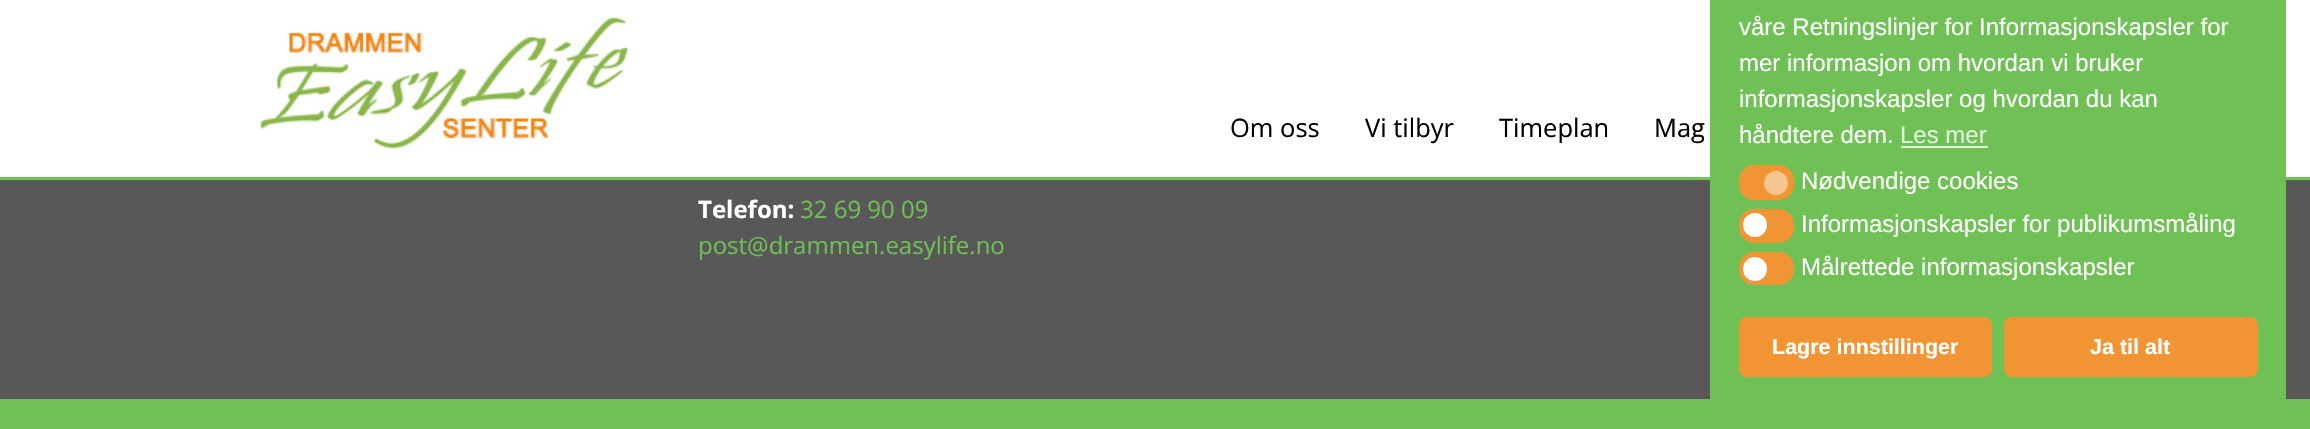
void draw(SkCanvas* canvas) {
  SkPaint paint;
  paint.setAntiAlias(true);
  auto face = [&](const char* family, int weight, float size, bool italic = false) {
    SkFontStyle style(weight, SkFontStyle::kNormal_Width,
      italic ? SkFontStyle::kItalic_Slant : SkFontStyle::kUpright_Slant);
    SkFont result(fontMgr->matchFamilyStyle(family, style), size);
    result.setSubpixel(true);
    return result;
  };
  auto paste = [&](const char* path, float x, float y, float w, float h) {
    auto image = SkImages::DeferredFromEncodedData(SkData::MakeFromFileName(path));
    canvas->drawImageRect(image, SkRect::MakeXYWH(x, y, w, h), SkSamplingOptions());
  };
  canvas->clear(0xff585858);
  paint.setColor(0xffffffff);
  canvas->drawRect(SkRect::MakeXYWH(0, 0, 2310, 177), paint);
  paint.setColor(0xff6fc055);
  canvas->drawRect(SkRect::MakeXYWH(0, 177, 2310, 3), paint);
  paste("img/1.png", 259, 17, 370, 132);
  canvas->drawRect(SkRect::MakeXYWH(0, 399, 2310, 30), paint);
  canvas->drawRoundRect(SkRect::MakeXYWH(1710, -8, 576, 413), 8, 8, paint);
  paint.setColor(0xffe2f2dd);
  canvas->drawRect(SkRect::MakeXYWH(1901, 146, 87, 2), paint);
  paint.setColor(0xfff19534);
  canvas->drawRoundRect(SkRect::MakeXYWH(1739, 165, 55, 35), 15, 15, paint);
  paint.setColor(0xfff7c58f);
  canvas->drawCircle(1776, 183, 12, paint);
  paint.setColor(0xfff19534);
  canvas->drawRoundRect(SkRect::MakeXYWH(1739, 209, 55, 34), 15, 15, paint);
  paint.setColor(0xffffffff);
  canvas->drawCircle(1755, 225, 12, paint);
  paint.setColor(0xfff19534);
  canvas->drawRoundRect(SkRect::MakeXYWH(1739, 252, 55, 33), 15, 15, paint);
  paint.setColor(0xffffffff);
  canvas->drawCircle(1755, 269, 12, paint);
  paint.setColor(0xfff19534);
  canvas->drawRoundRect(SkRect::MakeXYWH(1739, 317, 253, 60), 8, 8, paint);
  canvas->drawRoundRect(SkRect::MakeXYWH(2004, 317, 254, 60), 8, 8, paint);
  auto f0 = face("Open Sans", 400, 25.5f);
  paint.setColor(0xff000000);
  {
    const struct { const char* s; float x, y; } items[] = {
      {"Om oss", 1230, 137},
      {"Vi tilbyr", 1365, 137},
      {"Timeplan", 1499, 137},
      {"Mag", 1654, 137},
    };
    for (auto [s, x, y] : items) {
      canvas->drawString(s, x, y, f0, paint);
    }
  }
  auto f1 = face("Liberation Sans", 400, 24);
  paint.setColor(0xffffffff);
  {
    const struct { const char* s; float x, y; } items[] = {
      {"våre Retningslinjer for Informasjonskapsler for", 1739, 35},
      {"mer informasjon om hvordan vi bruker", 1739, 71},
      {"informasjonskapsler og hvordan du kan", 1739, 107},
      {"håndtere dem.", 1739, 143},
    };
    for (auto [s, x, y] : items) {
      canvas->drawString(s, x, y, f1, paint);
    }
  }
  paint.setColor(0xffe2f2dd);
  canvas->drawString("Les mer", 1900, 143, f1, paint);
  paint.setColor(0xffffffff);
  {
    const struct { const char* s; float x, y; } items[] = {
      {"Nødvendige cookies", 1801, 189},
      {"Informasjonskapsler for publikumsmåling", 1801, 232},
      {"Målrettede informasjonskapsler", 1801, 275},
    };
    for (auto [s, x, y] : items) {
      canvas->drawString(s, x, y, f1, paint);
    }
  }
  auto f2 = face("Liberation Sans", 700, 21.5f);
  canvas->drawString("Lagre innstillinger", 1772, 354, f2, paint);
  canvas->drawString("Ja til alt", 2090, 354, f2, paint);
  auto f3 = face("Open Sans", 700, 24);
  canvas->drawString("Telefon:", 698, 218, f3, paint);
  auto f4 = face("Open Sans", 400, 24);
  paint.setColor(0xff6fc055);
  canvas->drawString("32 69 90 09", 800, 218, f4, paint);
  canvas->drawString("post@drammen.easylife.no", 698, 254, f4, paint);
}
